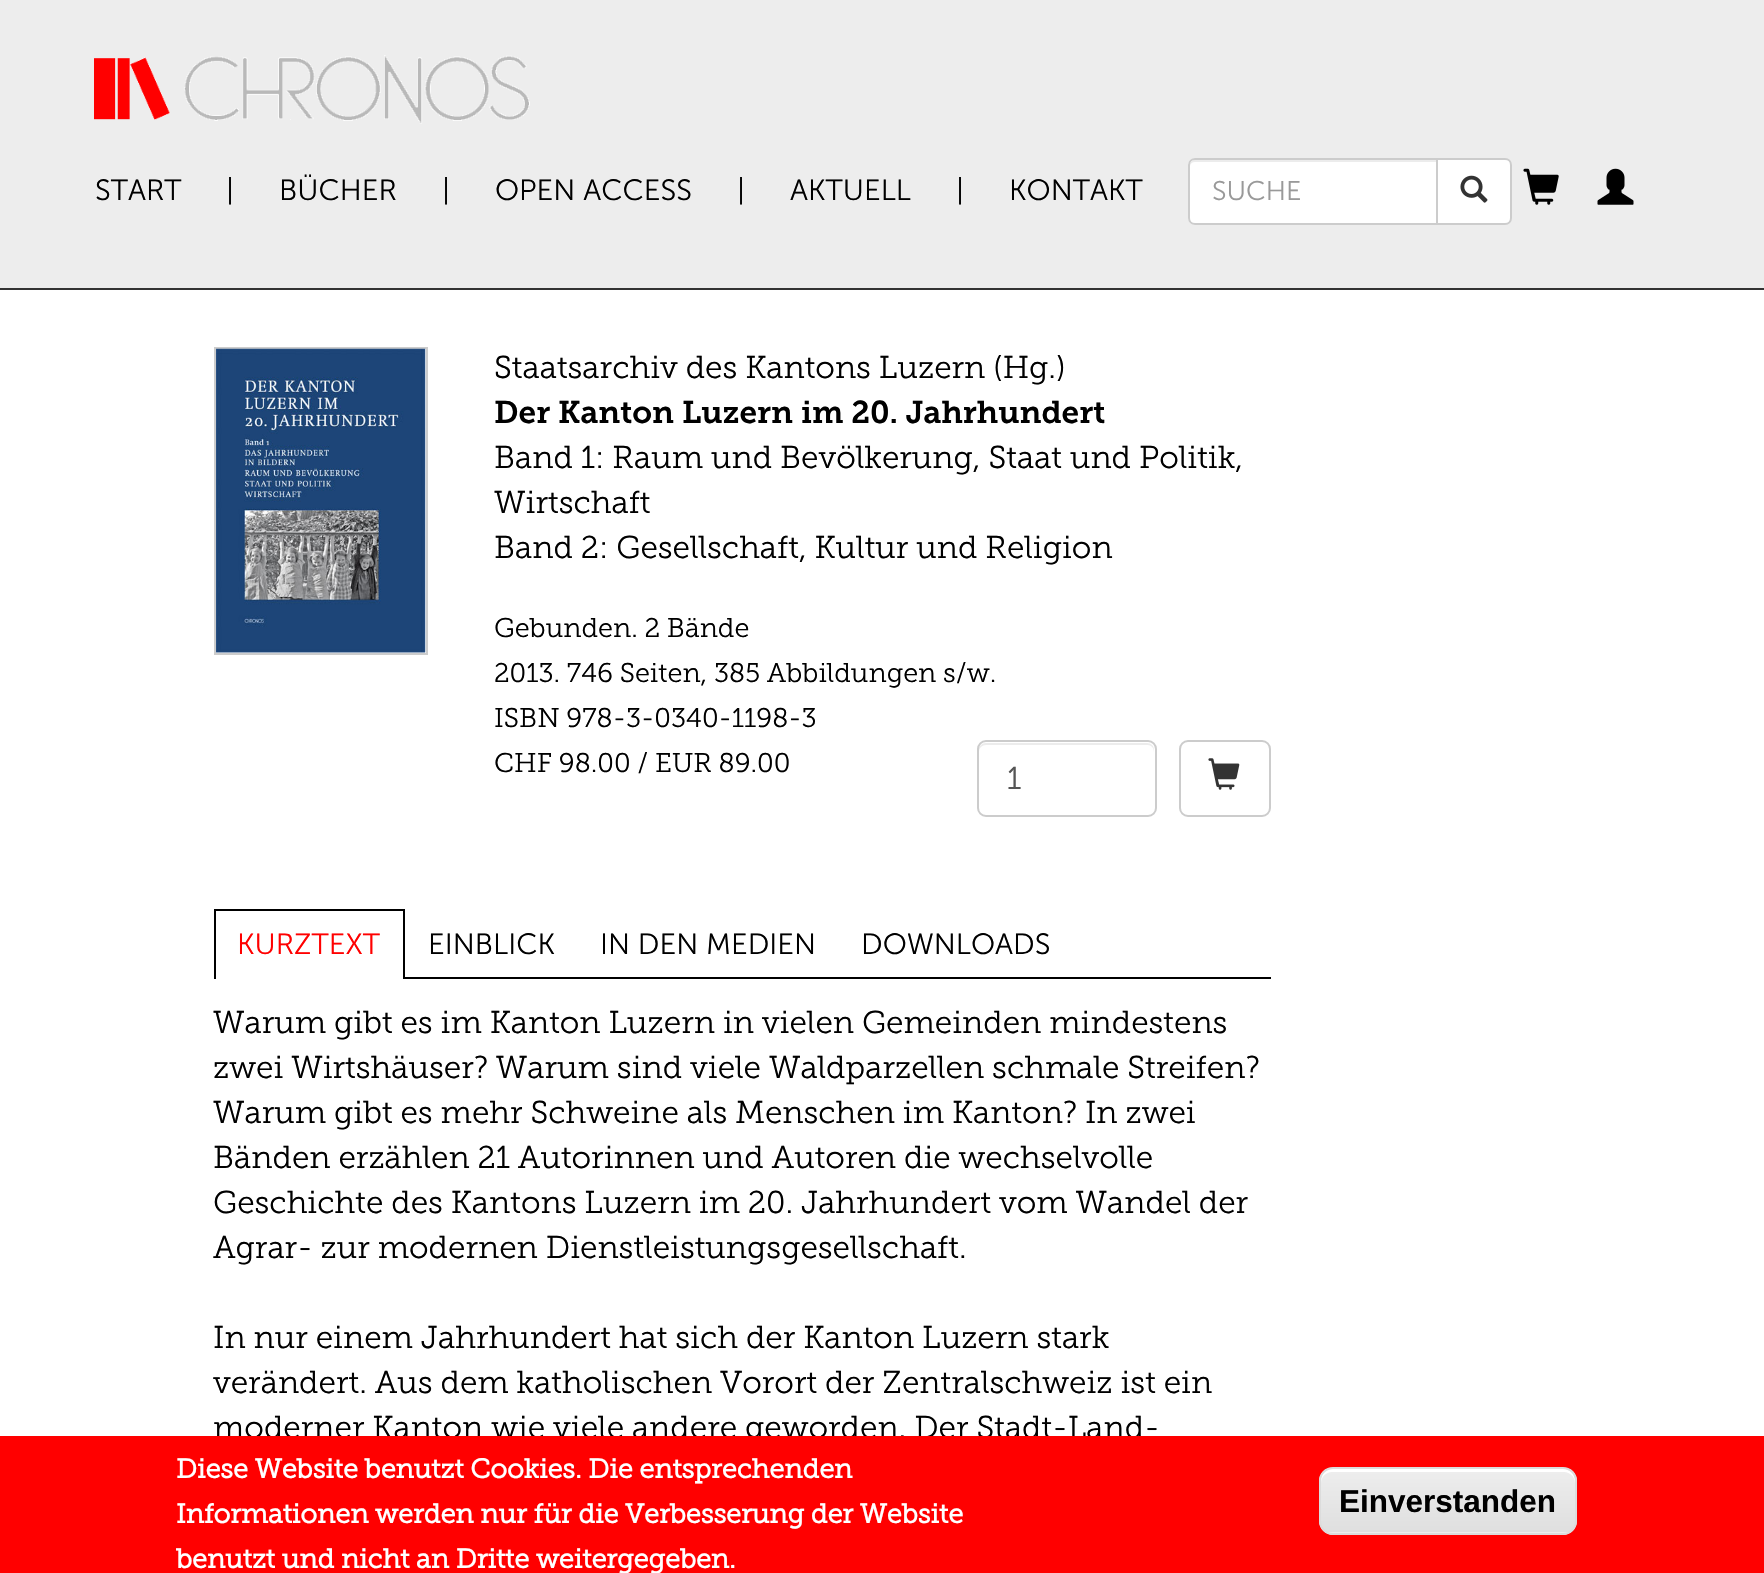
void draw(SkCanvas* canvas) {
  SkPaint paint;
  paint.setAntiAlias(true);
  auto face = [&](const char* family, int weight, float size, bool italic = false) {
    SkFontStyle style(weight, SkFontStyle::kNormal_Width,
      italic ? SkFontStyle::kItalic_Slant : SkFontStyle::kUpright_Slant);
    SkFont result(fontMgr->matchFamilyStyle(family, style), size);
    result.setSubpixel(true);
    return result;
  };
  auto paste = [&](const char* path, float x, float y, float w, float h) {
    auto image = SkImages::DeferredFromEncodedData(SkData::MakeFromFileName(path));
    canvas->drawImageRect(image, SkRect::MakeXYWH(x, y, w, h), SkSamplingOptions());
  };
  auto shape = [&](const char* data, bool evenOdd = false) {
    SkPath result = *SkParsePath::FromSVGString(data);
    if (evenOdd) result.setFillType(SkPathFillType::kEvenOdd);
    return result;
  };
  canvas->clear(0xffffffff);
  paint.setColor(0xffededed);
  canvas->drawRect(SkRect::MakeXYWH(0, 0, 1764, 288), paint);
  paint.setColor(0xff333333);
  canvas->drawRect(SkRect::MakeXYWH(0, 288, 1764, 2), paint);
  paste("img/1.png", 94, 55, 436, 69);
  paint.setColor(0xffffffff);
  canvas->drawPath(shape("M1195 158H1438V225H1195C1191 225 1188 222 1188 218V165C1188 161 1191 158 1195 158Z"), paint);
  paint.setColor(0xffececec);
  canvas->drawPath(shape("M1195 162H1436V160H1195C1192 160 1190 162 1190 165V166C1190 164 1192 162 1195 162Z"), paint);
  paint.setStroke(true);
  paint.setStrokeWidth(2);
  paint.setColor(0xffcccccc);
  canvas->drawPath(shape("M1195 159H1437V224H1195C1191.5 224 1189 221.5 1189 218V165C1189 161.5 1191.5 159 1195 159Z"), paint);
  paint.setStroke(false);
  paint.setColor(0xffffffff);
  canvas->drawPath(shape("M1437 159H1505C1508.5 159 1511 161.5 1511 165V218C1511 221.5 1508.5 224 1505 224H1437Z"), paint);
  paint.setStroke(true);
  paint.setColor(0xffcccccc);
  canvas->drawPath(shape("M1437 159H1505C1508.5 159 1511 161.5 1511 165V218C1511 221.5 1508.5 224 1505 224H1437Z"), paint);
  paste("img/2.png", 1460, 175, 28, 28);
  paste("img/3.png", 1523, 168, 36, 37);
  paste("img/4.png", 1597, 168, 37, 37);
  canvas->drawRect(SkRect::MakeXYWH(215, 348, 212, 306), paint);
  paste("img/5.png", 216, 348, 210, 305);
  paint.setStroke(false);
  paint.setColor(0xffececec);
  canvas->drawPath(shape("M986 745H1148C1151 745 1154 748 1154 752V750C1154 746 1151 743 1147 743H986C982 743 979 746 979 750V752C979 748 982 745 986 745Z"), paint);
  paint.setStroke(true);
  paint.setColor(0xffcccccc);
  canvas->drawRoundRect(SkRect::MakeXYWH(978, 741, 178, 75), 8, 8, paint);
  canvas->drawRoundRect(SkRect::MakeXYWH(1180, 741, 90, 75), 8, 8, paint);
  paste("img/6.png", 1208, 758, 32, 32);
  paint.setStroke(false);
  {
    const struct { float x, y, w, h; SkColor color; } items[] = {
      {405, 977, 866, 2, 0xff000000},
      {214, 909, 191, 2, 0xff000000},
      {403, 909, 2, 70, 0xff000000},
      {214, 909, 2, 70, 0xff000000},
    };
    for (auto [x, y, w, h, color] : items) {
      paint.setColor(color);
      canvas->drawRect(SkRect::MakeXYWH(x, y, w, h), paint);
    }
  }
  auto f0 = face("Museo Sans", 300, 29.25f);
  {
    const struct { const char* s; float x, y; } items[] = {
      {"START", 95, 200},
      {"|", 226, 200},
      {"BÜCHER", 279, 200},
      {"|", 442, 200},
      {"OPEN ACCESS", 495, 200},
      {"|", 737, 200},
      {"AKTUELL", 790, 200},
      {"|", 956, 200},
      {"KONTAKT", 1009, 200},
    };
    for (auto [s, x, y] : items) {
      canvas->drawString(s, x, y, f0, paint);
    }
  }
  auto f1 = face("Museo Sans", 300, 27);
  paint.setColor(0xff999999);
  canvas->drawString("SUCHE", 1212, 200, f1, paint);
  auto f2 = face("Museo Slab", 300, 31.5f);
  paint.setColor(0xff000000);
  canvas->drawString("Staatsarchiv des Kantons Luzern (Hg.)", 494, 378, f2, paint);
  auto f3 = face("Museo Slab", 600, 31.5f);
  canvas->drawString("Der Kanton Luzern im 20. Jahrhundert", 494, 423, f3, paint);
  {
    const struct { const char* s; float x, y; } items[] = {
      {"Band 1: Raum und Bevölkerung, Staat und Politik,", 494, 468},
      {"Wirtschaft", 494, 513},
      {"Band 2: Gesellschaft, Kultur und Religion", 494, 558},
    };
    for (auto [s, x, y] : items) {
      canvas->drawString(s, x, y, f2, paint);
    }
  }
  auto f4 = face("Museo Slab", 300, 27);
  {
    const struct { const char* s; float x, y; } items[] = {
      {"Gebunden. 2 Bände", 494, 637},
      {"2013. 746 Seiten, 385 Abbildungen s/w.", 494, 682},
      {"ISBN 978-3-0340-1198-3", 494, 727},
      {"CHF 98.00 / EUR 89.00", 494, 772},
    };
    for (auto [s, x, y] : items) {
      canvas->drawString(s, x, y, f4, paint);
    }
  }
  paint.setColor(0xff555555);
  canvas->drawString("1", 1007, 789, f2, paint);
  paint.setColor(0xffff0000);
  canvas->drawString("KURZTEXT", 237, 954, f0, paint);
  paint.setColor(0xff000000);
  {
    const struct { const char* s; float x, y; } items[] = {
      {"EINBLICK", 428, 954},
      {"IN DEN MEDIEN", 600, 954},
      {"DOWNLOADS", 861, 954},
    };
    for (auto [s, x, y] : items) {
      canvas->drawString(s, x, y, f0, paint);
    }
  }
  {
    const struct { const char* s; float x, y; } items[] = {
      {"Warum gibt es im Kanton Luzern in vielen Gemeinden mindestens", 213, 1033},
      {"zwei Wirtshäuser? Warum sind viele Waldparzellen schmale Streifen?", 213, 1078},
      {"Warum gibt es mehr Schweine als Menschen im Kanton? In zwei", 213, 1123},
      {"Bänden erzählen 21 Autorinnen und Autoren die wechselvolle", 213, 1168},
      {"Geschichte des Kantons Luzern im 20. Jahrhundert vom Wandel der", 213, 1213},
      {"Agrar- zur modernen Dienstleistungsgesellschaft.", 213, 1258},
      {"In nur einem Jahrhundert hat sich der Kanton Luzern stark", 213, 1348},
      {"verändert. Aus dem katholischen Vorort der Zentralschweiz ist ein", 213, 1393},
      {"moderner Kanton wie viele andere geworden. Der Stadt-Land-", 213, 1438},
    };
    for (auto [s, x, y] : items) {
      canvas->drawString(s, x, y, f2, paint);
    }
  }
  paint.setColor(0xffff0000);
  canvas->drawRect(SkRect::MakeXYWH(0, 1436, 1764, 137), paint);
  auto f5 = face("Museo Slab", 700, 27);
  paint.setColor(0xffffffff);
  {
    const struct { const char* s; float x, y; } items[] = {
      {"Diese Website benutzt Cookies. Die entsprechenden", 176, 1478},
      {"Informationen werden nur für die Verbesserung der Website", 176, 1523},
      {"benutzt und nicht an Dritte weitergegeben.", 176, 1568},
    };
    for (auto [s, x, y] : items) {
      canvas->drawString(s, x, y, f5, paint);
    }
  }
  canvas->save();
  canvas->clipPath(shape("M1333 1467H1563C1570.5 1467 1577 1473.5 1577 1481V1521C1577 1528.5 1570.5 1535 1563 1535H1333C1325.5 1535 1319 1528.5 1319 1521V1481C1319 1473.5 1325.5 1467 1333 1467Z"), true);
  {
    const SkColor colors[] = {0xffededed, 0xffdfdfdf};
    const float stops[] = {0.05f, 1};
    const SkPoint ends[] = {{1448, 1469}, {1448, 1532}};
    paint.setShader(SkGradientShader::MakeLinear(ends, colors, stops, 2, SkTileMode::kClamp));
    paint.setAlpha(255);
  }
  canvas->drawRect(SkRect::MakeXYWH(1319, 1469, 258, 63), paint);
  {
    const SkColor colors[] = {0xffededed, 0xffdfdfdf};
    const float stops[] = {0.05f, 1};
    const SkPoint ends[] = {{1448, 1532}, {1448, 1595}};
    paint.setShader(SkGradientShader::MakeLinear(ends, colors, stops, 2, SkTileMode::kClamp));
    paint.setAlpha(255);
  }
  canvas->drawRect(SkRect::MakeXYWH(1319, 1532, 258, 3), paint);
  canvas->restore();
  paint.setShader(nullptr);
  paint.setColor(0xffffffff);
  canvas->drawPath(shape("M1332 1472H1564C1570 1472 1575 1477 1575 1483V1480C1575 1474 1570 1469 1564 1469H1332C1326 1469 1321 1474 1321 1480V1483C1321 1477 1326 1472 1332 1472Z"), paint);
  paint.setStroke(true);
  paint.setColor(0xffdcdcdc);
  canvas->drawRoundRect(SkRect::MakeXYWH(1320, 1468, 256, 66), 13, 13, paint);
  auto f6 = face("Liberation Sans", 700, 31.5f);
  paint.setStroke(false);
  paint.setColor(0xff000000);
  canvas->drawString("Einverstanden", 1339, 1512, f6, paint);
}
